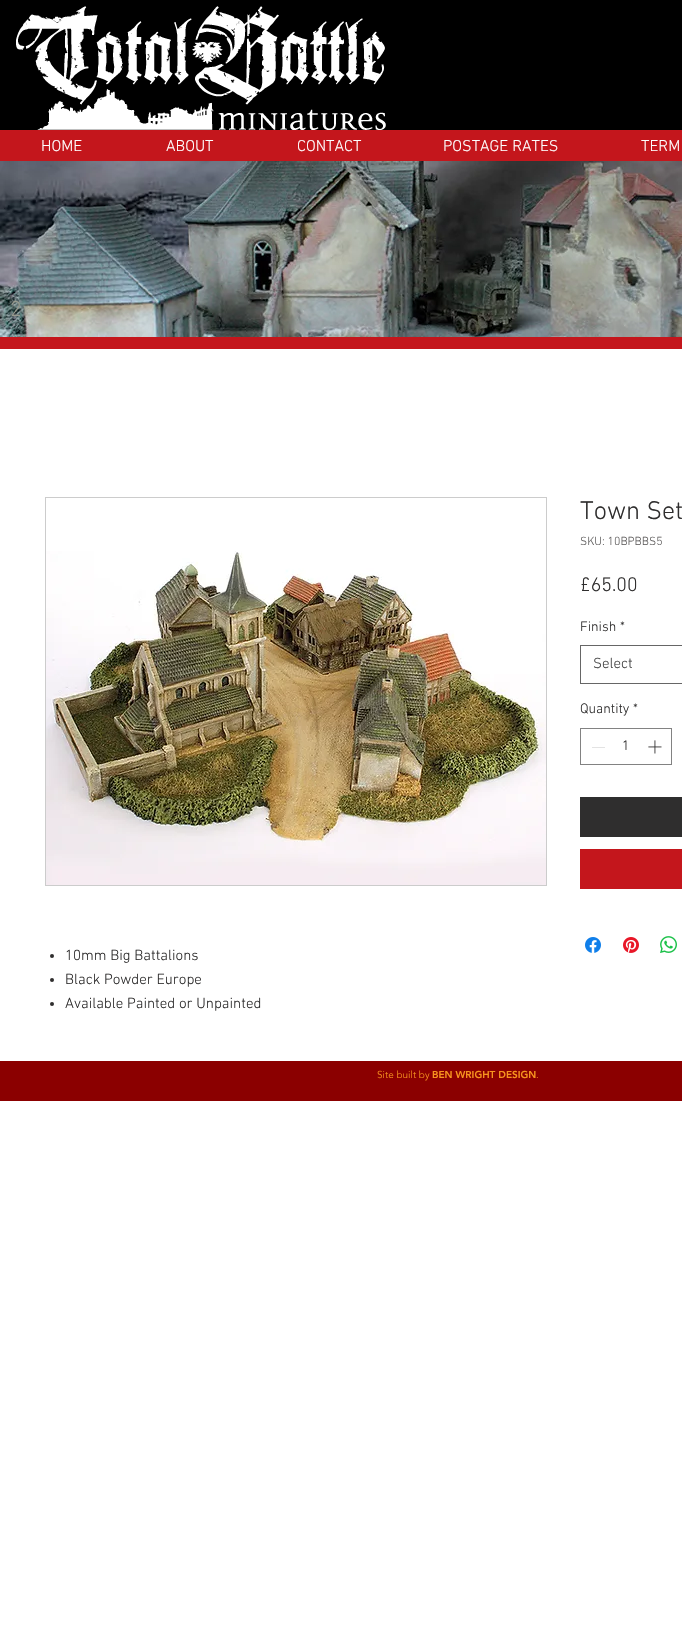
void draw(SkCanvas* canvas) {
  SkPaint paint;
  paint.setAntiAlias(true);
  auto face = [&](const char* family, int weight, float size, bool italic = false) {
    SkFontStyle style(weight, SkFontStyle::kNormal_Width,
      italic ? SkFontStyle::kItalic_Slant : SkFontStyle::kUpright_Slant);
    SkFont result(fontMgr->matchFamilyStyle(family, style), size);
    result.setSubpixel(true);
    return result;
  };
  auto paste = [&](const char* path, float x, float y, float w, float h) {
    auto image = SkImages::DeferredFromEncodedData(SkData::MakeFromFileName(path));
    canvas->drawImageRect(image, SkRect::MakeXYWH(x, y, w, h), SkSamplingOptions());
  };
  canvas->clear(0xffffffff);
  paste("img/1.png", 0, 0, 682, 132);
  paste("img/2.png", 16, 6, 370, 124);
  paint.setColor(0xffc4161c);
  canvas->drawRect(SkRect::MakeXYWH(0, 132, 682, 29), paint);
  paste("img/3.png", 0, 161, 682, 176);
  canvas->drawRect(SkRect::MakeXYWH(0, 337, 682, 12), paint);
  paint.setStroke(true);
  paint.setStrokeWidth(1);
  paint.setColor(0xff666666);
  canvas->drawRect(SkRect::MakeXYWH(580.5f, 645.5f, 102, 38), paint);
  paint.setColor(0xff828282);
  canvas->drawRect(SkRect::MakeXYWH(580.5f, 728.5f, 91, 36), paint);
  paint.setStroke(false);
  paint.setColor(0xffe3e3e3);
  canvas->drawRect(SkRect::MakeXYWH(592, 747, 13, 1), paint);
  paste("img/4.png", 648, 740, 14, 14);
  paint.setColor(0xff2f2e2e);
  canvas->drawRect(SkRect::MakeXYWH(580, 797, 102, 40), paint);
  paint.setColor(0xffc4161c);
  canvas->drawRect(SkRect::MakeXYWH(580, 849, 102, 40), paint);
  paste("img/5.png", 585, 937, 16, 16);
  paste("img/6.png", 623, 937, 16, 16);
  paste("img/7.png", 660, 936, 17, 17);
  paint.setStroke(true);
  paint.setColor(0xffcccccc);
  canvas->drawRect(SkRect::MakeXYWH(45.5f, 497.5f, 501, 388), paint);
  paste("img/8.png", 46, 551, 500, 334);
  paint.setStroke(false);
  paint.setColor(0xff2f2e2e);
  canvas->drawCircle(52, 956, 2, paint);
  canvas->drawCircle(52, 980, 2, paint);
  canvas->drawCircle(52, 1004, 2, paint);
  paint.setColor(0xff8b0000);
  canvas->drawRect(SkRect::MakeXYWH(0, 1061, 682, 40), paint);
  auto f0 = face("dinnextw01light", 300, 16);
  paint.setColor(0xffffffff);
  {
    const struct { const char* s; float x, y; } items[] = {
      {"HOME", 41, 151},
      {"ABOUT", 166, 151},
      {"CONTACT", 297, 151},
      {"POSTAGE RATES", 443, 151},
      {"TERM", 641, 151},
    };
    for (auto [s, x, y] : items) {
      canvas->drawString(s, x, y, f0, paint);
    }
  }
  auto f1 = face("dinnextw01light", 300, 22);
  paint.setColor(0xff989a8e);
  canvas->drawString("2", 10, 316, f1, paint);
  auto f2 = face("dinnextw01light", 300, 26);
  paint.setColor(0xff2f2e2e);
  canvas->drawString("Town Set", 580, 519, f2, paint);
  auto f3 = face("dinnextw01light", 300, 12);
  paint.setColor(0xff605e5e);
  canvas->drawString("SKU: 10BPBBS5", 580, 545, f3, paint);
  auto f4 = face("dinnextw01light", 300, 20);
  paint.setColor(0xff2f2e2e);
  canvas->drawString("£65.00", 580, 591, f4, paint);
  auto f5 = face("dinnextw01light", 300, 14);
  canvas->drawString("Finish", 580, 631, f5, paint);
  canvas->drawString("*", 620, 631, f5, paint);
  auto f6 = face("dinnextw01light", 300, 15);
  paint.setColor(0xff444444);
  canvas->drawString("Select", 593, 668, f6, paint);
  paint.setColor(0xff2f2e2e);
  {
    const struct { const char* s; float x, y; } items[] = {
      {"Quantity", 580, 713},
      {"*", 633, 713},
      {"1", 622, 750},
    };
    for (auto [s, x, y] : items) {
      canvas->drawString(s, x, y, f5, paint);
    }
  }
  {
    const struct { const char* s; float x, y; } items[] = {
      {"10mm Big Battalions", 65, 960},
      {"Black Powder Europe", 65, 984},
      {"Available Painted or Unpainted", 65, 1008},
    };
    for (auto [s, x, y] : items) {
      canvas->drawString(s, x, y, f6, paint);
    }
  }
  auto f7 = face("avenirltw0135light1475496", 300, 10);
  paint.setColor(0xfff7931e);
  canvas->drawString("Site built by", 377, 1078, f7, paint);
  auto f8 = face("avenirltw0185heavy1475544", 900, 10);
  canvas->drawString("BEN WRIGHT DESIGN", 432, 1078, f8, paint);
  canvas->drawString(".", 536, 1078, f7, paint);
}
